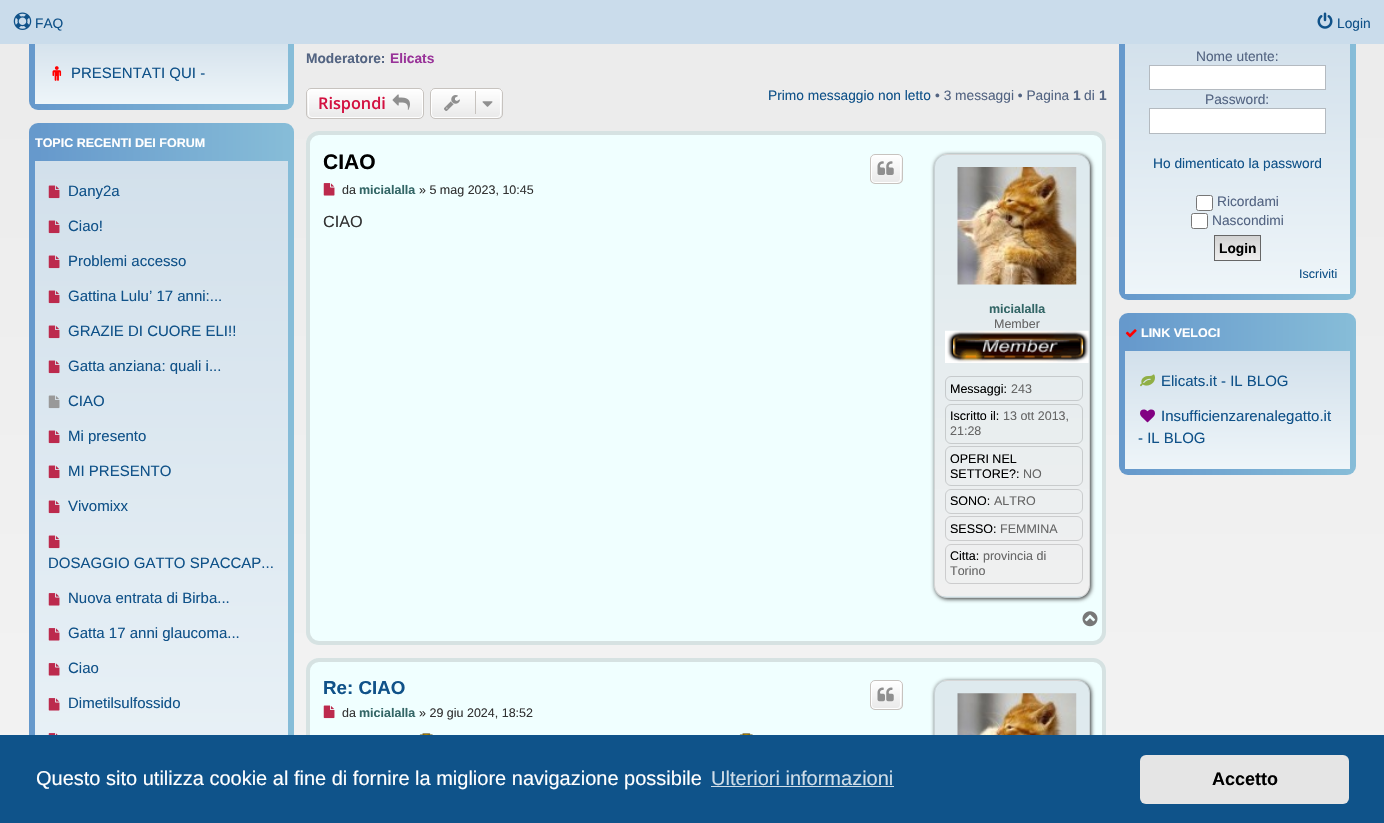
void draw(SkCanvas* canvas) {
  SkPaint paint;
  paint.setAntiAlias(true);
  auto face = [&](const char* family, int weight, float size, bool italic = false) {
    SkFontStyle style(weight, SkFontStyle::kNormal_Width,
      italic ? SkFontStyle::kItalic_Slant : SkFontStyle::kUpright_Slant);
    SkFont result(fontMgr->matchFamilyStyle(family, style), size);
    result.setSubpixel(true);
    return result;
  };
  auto paste = [&](const char* path, float x, float y, float w, float h) {
    auto image = SkImages::DeferredFromEncodedData(SkData::MakeFromFileName(path));
    canvas->drawImageRect(image, SkRect::MakeXYWH(x, y, w, h), SkSamplingOptions());
  };
  auto shape = [&](const char* data, bool evenOdd = false) {
    SkPath result = *SkParsePath::FromSVGString(data);
    if (evenOdd) result.setFillType(SkPathFillType::kEvenOdd);
    return result;
  };
  canvas->clear(0xffffffff);
  {
    const SkColor colors[] = {0xffe8e8e8, 0xffffffff};
    const float stops[] = {0.03f, 1};
    const SkPoint ends[] = {{692, -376}, {693, 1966}};
    paint.setShader(SkGradientShader::MakeLinear(ends, colors, stops, 2, SkTileMode::kClamp));
    paint.setAlpha(255);
  }
  canvas->drawRect(SkRect::MakeXYWH(0, 44, 1384, 691), paint);
  {
    const SkColor colors[] = {0xff6699cc, 0xff87bdd8};
    const float stops[] = {0.03f, 1};
    const SkPoint ends[] = {{29, 53}, {294, 53}};
    paint.setShader(SkGradientShader::MakeLinear(ends, colors, stops, 2, SkTileMode::kClamp));
    paint.setAlpha(255);
  }
  canvas->drawRoundRect(SkRect::MakeXYWH(29, -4, 265, 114), 9, 9, paint);
  {
    const SkColor colors[] = {0xff6699cc, 0xff87bdd8};
    const float stops[] = {0.03f, 1};
    const SkPoint ends[] = {{1119, 148}, {1356, 148}};
    paint.setShader(SkGradientShader::MakeLinear(ends, colors, stops, 2, SkTileMode::kClamp));
    paint.setAlpha(255);
  }
  canvas->drawRoundRect(SkRect::MakeXYWH(1119, -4, 237, 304), 9, 9, paint);
  paint.setShader(nullptr);
  paint.setColor(0xffcadceb);
  canvas->drawRect(SkRect::MakeXYWH(0, 0, 1384, 44), paint);
  paste("img/1.png", 13, 12, 19, 18);
  paste("img/2.png", 1317, 12, 16, 17);
  {
    const SkColor colors[] = {0xffd2e0eb, 0xffeef5f9};
    const float stops[] = {0, 1};
    const SkPoint ends[] = {{161, 35}, {161, 104}};
    paint.setShader(SkGradientShader::MakeLinear(ends, colors, stops, 2, SkTileMode::kClamp));
    paint.setAlpha(255);
  }
  canvas->drawRect(SkRect::MakeXYWH(35, 44, 253, 60), paint);
  paste("img/3.png", 52, 66, 10, 15);
  {
    const SkColor colors[] = {0xff6699cc, 0xff87bdd8};
    const float stops[] = {0.03f, 1};
    const SkPoint ends[] = {{29, 519}, {294, 519}};
    paint.setShader(SkGradientShader::MakeLinear(ends, colors, stops, 2, SkTileMode::kClamp));
    paint.setAlpha(255);
  }
  canvas->drawRoundRect(SkRect::MakeXYWH(29, 123, 265, 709), 9, 9, paint);
  {
    const SkColor colors[] = {0xffd2e0eb, 0xffeef5f9};
    const float stops[] = {0, 1};
    const SkPoint ends[] = {{161, 161}, {161, 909}};
    paint.setShader(SkGradientShader::MakeLinear(ends, colors, stops, 2, SkTileMode::kClamp));
    paint.setAlpha(255);
  }
  canvas->drawRect(SkRect::MakeXYWH(35, 161, 253, 574), paint);
  paste("img/4.png", 48, 185, 12, 14);
  paste("img/5.png", 48, 220, 12, 14);
  paste("img/6.png", 48, 255, 12, 14);
  paste("img/7.png", 48, 290, 12, 14);
  paste("img/8.png", 48, 325, 12, 14);
  paste("img/9.png", 48, 360, 12, 14);
  paste("img/10.png", 48, 395, 12, 14);
  paste("img/11.png", 48, 430, 12, 14);
  paste("img/12.png", 48, 465, 12, 14);
  paste("img/13.png", 48, 500, 12, 14);
  paste("img/14.png", 48, 535, 12, 14);
  paste("img/15.png", 48, 593, 12, 13);
  paste("img/16.png", 48, 628, 12, 13);
  paste("img/17.png", 48, 663, 12, 13);
  paste("img/18.png", 48, 698, 12, 13);
  paste("img/19.png", 48, 733, 10, 2);
  canvas->save();
  canvas->clipPath(shape("M311 88H419C422 88 424 90 424 93V114C424 117 422 119 419 119H311C308 119 306 117 306 114V93C306 90 308 88 311 88Z"), true);
  {
    const SkColor colors[] = {0xffffffff, 0xffe9e9e9};
    const float stops[] = {0, 1};
    const SkPoint ends[] = {{365, 89}, {365, 118}};
    paint.setShader(SkGradientShader::MakeLinear(ends, colors, stops, 2, SkTileMode::kClamp));
    paint.setAlpha(255);
  }
  canvas->drawRect(SkRect::MakeXYWH(306, 89, 118, 29), paint);
  canvas->restore();
  paint.setStroke(true);
  paint.setStrokeWidth(1);
  paint.setShader(nullptr);
  paint.setColor(0xffffffff);
  canvas->drawRoundRect(SkRect::MakeXYWH(308.5f, 89.5f, 114, 28), 3.5f, 3.5f, paint);
  paint.setColor(0xffc7c3bf);
  canvas->drawRoundRect(SkRect::MakeXYWH(306.5f, 88.5f, 117, 30), 4.5f, 4.5f, paint);
  paste("img/20.png", 392, 94, 18, 16);
  canvas->save();
  canvas->clipPath(shape("M435 88H498C501 88 503 90 503 93V114C503 117 501 119 498 119H435C432 119 430 117 430 114V93C430 90 432 88 435 88Z"), true);
  paint.setStroke(false);
  {
    const SkColor colors[] = {0xffffffff, 0xffe9e9e9};
    const float stops[] = {0, 1};
    const SkPoint ends[] = {{466, 89}, {466, 118}};
    paint.setShader(SkGradientShader::MakeLinear(ends, colors, stops, 2, SkTileMode::kClamp));
    paint.setAlpha(255);
  }
  canvas->drawRect(SkRect::MakeXYWH(430, 89, 73, 29), paint);
  canvas->restore();
  paint.setStroke(true);
  paint.setShader(nullptr);
  paint.setColor(0xffffffff);
  canvas->drawRoundRect(SkRect::MakeXYWH(431.5f, 89.5f, 69, 28), 3.5f, 3.5f, paint);
  paint.setColor(0xffc7c3bf);
  canvas->drawRoundRect(SkRect::MakeXYWH(430.5f, 88.5f, 72, 30), 4.5f, 4.5f, paint);
  paste("img/21.png", 444, 95, 16, 16);
  paint.setStroke(false);
  canvas->drawRect(SkRect::MakeXYWH(475, 91, 1, 23), paint);
  paste("img/22.png", 482, 101, 11, 6);
  paint.setColor(0xfff0ffff);
  canvas->drawRoundRect(SkRect::MakeXYWH(306, 131, 800, 514), 13, 13, paint);
  paint.setStroke(true);
  paint.setStrokeWidth(4);
  paint.setColor(0x33707070);
  canvas->drawRoundRect(SkRect::MakeXYWH(308, 133, 796, 510), 11, 11, paint);
  canvas->save();
  canvas->clipPath(shape("M875 154H898C901 154 903 156 903 159V179C903 182 901 184 898 184H875C872 184 870 182 870 179V159C870 156 872 154 875 154Z"), true);
  paint.setStroke(false);
  {
    const SkColor colors[] = {0xffffffff, 0xffe9e9e9};
    const float stops[] = {0, 1};
    const SkPoint ends[] = {{886, 155}, {886, 183}};
    paint.setShader(SkGradientShader::MakeLinear(ends, colors, stops, 2, SkTileMode::kClamp));
    paint.setAlpha(255);
  }
  canvas->drawRect(SkRect::MakeXYWH(870, 155, 33, 28), paint);
  canvas->restore();
  paint.setStroke(true);
  paint.setStrokeWidth(1);
  paint.setShader(nullptr);
  paint.setColor(0xffffffff);
  canvas->drawRoundRect(SkRect::MakeXYWH(871.5f, 155.5f, 29, 27), 3.5f, 3.5f, paint);
  paint.setColor(0xffc7c3bf);
  canvas->drawRoundRect(SkRect::MakeXYWH(870.5f, 154.5f, 32, 29), 4.5f, 4.5f, paint);
  paste("img/23.png", 877, 161, 17, 14);
  paste("img/24.png", 323, 183, 12, 13);
  paint.setStroke(false);
  paint.setColor(0xff333333);
  paint.setMaskFilter(SkMaskFilter::MakeBlur(kNormal_SkBlurStyle, 2));
  canvas->drawRoundRect(SkRect::MakeXYWH(935, 155, 156, 444), 13, 13, paint);
  paint.setMaskFilter(nullptr);
  canvas->save();
  canvas->clipPath(shape("M947 154H1077C1084 154 1090 160 1090 167V585C1090 592 1084 598 1077 598H947C940 598 934 592 934 585V167C934 160 940 154 947 154Z"), true);
  {
    const SkColor colors[] = {0xffdeeaee, 0xfff0f0f0};
    const float stops[] = {0.03f, 1};
    const SkPoint ends[] = {{1012, -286}, {1012, 155}};
    paint.setShader(SkGradientShader::MakeLinear(ends, colors, stops, 2, SkTileMode::kClamp));
    paint.setAlpha(255);
  }
  canvas->drawRect(SkRect::MakeXYWH(934, 154, 156, 1), paint);
  {
    const SkColor colors[] = {0xffdeeaee, 0xfff0f0f0};
    const float stops[] = {0.03f, 1};
    const SkPoint ends[] = {{1012, 155}, {1012, 596}};
    paint.setShader(SkGradientShader::MakeLinear(ends, colors, stops, 2, SkTileMode::kClamp));
    paint.setAlpha(255);
  }
  canvas->drawRect(SkRect::MakeXYWH(934, 155, 156, 441), paint);
  {
    const SkColor colors[] = {0xffdeeaee, 0xfff0f0f0};
    const float stops[] = {0.03f, 1};
    const SkPoint ends[] = {{1012, 596}, {1012, 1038}};
    paint.setShader(SkGradientShader::MakeLinear(ends, colors, stops, 2, SkTileMode::kClamp));
    paint.setAlpha(255);
  }
  canvas->drawRect(SkRect::MakeXYWH(934, 596, 156, 2), paint);
  canvas->restore();
  paint.setStroke(true);
  paint.setShader(nullptr);
  paint.setColor(0x33707070);
  canvas->drawRoundRect(SkRect::MakeXYWH(934.5f, 154.5f, 155, 443), 12.5f, 12.5f, paint);
  paste("img/25.png", 957, 167, 120, 118);
  paste("img/26.png", 945, 330, 144, 33);
  paint.setColor(0xffc6cacc);
  canvas->drawRoundRect(SkRect::MakeXYWH(945.5f, 376.5f, 137, 24), 5.5f, 5.5f, paint);
  paint.setColor(0xffc7cbcc);
  canvas->drawRoundRect(SkRect::MakeXYWH(945.5f, 404.5f, 137, 39), 5.5f, 5.5f, paint);
  paint.setColor(0xffc8cbcc);
  canvas->drawRoundRect(SkRect::MakeXYWH(945.5f, 446.5f, 137, 39), 5.5f, 5.5f, paint);
  paint.setColor(0xffcacccd);
  canvas->drawRoundRect(SkRect::MakeXYWH(945.5f, 489.5f, 137, 24), 5.5f, 5.5f, paint);
  paint.setColor(0xffcbcccd);
  canvas->drawRoundRect(SkRect::MakeXYWH(945.5f, 516.5f, 137, 24), 5.5f, 5.5f, paint);
  paint.setColor(0xffcccccd);
  canvas->drawRoundRect(SkRect::MakeXYWH(945.5f, 544.5f, 137, 39), 5.5f, 5.5f, paint);
  paste("img/27.png", 1082, 611, 16, 16);
  paint.setStroke(false);
  paint.setColor(0xfff0ffff);
  canvas->drawRoundRect(SkRect::MakeXYWH(306, 658, 800, 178), 13, 13, paint);
  paint.setStroke(true);
  paint.setStrokeWidth(4);
  paint.setColor(0x33707070);
  canvas->drawRoundRect(SkRect::MakeXYWH(308, 660, 796, 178), 11, 11, paint);
  canvas->save();
  canvas->clipPath(shape("M875 680H898C901 680 903 682 903 685V705C903 708 901 710 898 710H875C872 710 870 708 870 705V685C870 682 872 680 875 680Z"), true);
  paint.setStroke(false);
  {
    const SkColor colors[] = {0xffffffff, 0xffe9e9e9};
    const float stops[] = {0, 1};
    const SkPoint ends[] = {{886, 681}, {886, 709}};
    paint.setShader(SkGradientShader::MakeLinear(ends, colors, stops, 2, SkTileMode::kClamp));
    paint.setAlpha(255);
  }
  canvas->drawRect(SkRect::MakeXYWH(870, 681, 33, 28), paint);
  canvas->restore();
  paint.setStroke(true);
  paint.setStrokeWidth(1);
  paint.setShader(nullptr);
  paint.setColor(0xffffffff);
  canvas->drawRoundRect(SkRect::MakeXYWH(871.5f, 681.5f, 29, 27), 3.5f, 3.5f, paint);
  paint.setColor(0xffc7c3bf);
  canvas->drawRoundRect(SkRect::MakeXYWH(870.5f, 680.5f, 32, 29), 4.5f, 4.5f, paint);
  paste("img/28.png", 877, 687, 17, 15);
  paste("img/29.png", 323, 705, 12, 14);
  paste("img/30.png", 419, 733, 14, 2);
  paste("img/30.png", 739, 733, 14, 2);
  paint.setStroke(false);
  paint.setColor(0xff333333);
  paint.setMaskFilter(SkMaskFilter::MakeBlur(kNormal_SkBlurStyle, 2));
  canvas->drawRoundRect(SkRect::MakeXYWH(935, 681, 156, 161), 13, 13, paint);
  paint.setMaskFilter(nullptr);
  canvas->save();
  canvas->clipPath(shape("M947 680H1077C1084 680 1090 686 1090 693V1112C1090 1119 1084 1125 1077 1125H947C940 1125 934 1119 934 1112V693C934 686 940 680 947 680Z"), true);
  {
    const SkColor colors[] = {0xffdeeaee, 0xfff0f0f0};
    const float stops[] = {0.03f, 1};
    const SkPoint ends[] = {{1012, 239}, {1012, 681}};
    paint.setShader(SkGradientShader::MakeLinear(ends, colors, stops, 2, SkTileMode::kClamp));
    paint.setAlpha(255);
  }
  canvas->drawRect(SkRect::MakeXYWH(934, 680, 156, 1), paint);
  {
    const SkColor colors[] = {0xffdeeaee, 0xfff0f0f0};
    const float stops[] = {0.03f, 1};
    const SkPoint ends[] = {{1012, 681}, {1012, 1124}};
    paint.setShader(SkGradientShader::MakeLinear(ends, colors, stops, 2, SkTileMode::kClamp));
    paint.setAlpha(255);
  }
  canvas->drawRect(SkRect::MakeXYWH(934, 681, 156, 54), paint);
  canvas->restore();
  paint.setStroke(true);
  paint.setShader(nullptr);
  paint.setColor(0x33707070);
  canvas->drawRoundRect(SkRect::MakeXYWH(934.5f, 680.5f, 155, 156), 12.5f, 12.5f, paint);
  paste("img/31.png", 957, 693, 120, 42);
  paint.setStroke(false);
  {
    const SkColor colors[] = {0xffd2e0eb, 0xffeef5f9};
    const float stops[] = {0, 1};
    const SkPoint ends[] = {{1238, 35}, {1238, 294}};
    paint.setShader(SkGradientShader::MakeLinear(ends, colors, stops, 2, SkTileMode::kClamp));
    paint.setAlpha(255);
  }
  canvas->drawRect(SkRect::MakeXYWH(1125, 44, 225, 250), paint);
  paint.setShader(nullptr);
  paint.setColor(0xffffffff);
  canvas->drawRect(SkRect::MakeXYWH(1149.5f, 65.5f, 176, 24), paint);
  paint.setStroke(true);
  paint.setColor(0xffb4bac0);
  canvas->drawRect(SkRect::MakeXYWH(1149.5f, 65.5f, 176, 24), paint);
  paint.setStroke(false);
  paint.setColor(0xffffffff);
  canvas->drawRect(SkRect::MakeXYWH(1149.5f, 108.5f, 176, 25), paint);
  paint.setStroke(true);
  paint.setColor(0xffb4bac0);
  canvas->drawRect(SkRect::MakeXYWH(1149.5f, 108.5f, 176, 25), paint);
  paint.setStroke(false);
  paint.setColor(0xffffffff);
  canvas->drawRoundRect(SkRect::MakeXYWH(1196.5f, 195.5f, 16, 15), 2, 2, paint);
  paint.setStroke(true);
  paint.setColor(0xff767676);
  canvas->drawRoundRect(SkRect::MakeXYWH(1196.5f, 195.5f, 16, 15), 2, 2, paint);
  paint.setStroke(false);
  paint.setColor(0xffffffff);
  canvas->drawRoundRect(SkRect::MakeXYWH(1191.5f, 213.5f, 16, 15), 2, 2, paint);
  paint.setStroke(true);
  paint.setColor(0xff767676);
  canvas->drawRoundRect(SkRect::MakeXYWH(1191.5f, 213.5f, 16, 15), 2, 2, paint);
  paint.setStroke(false);
  {
    const SkColor colors[] = {0xffd2d2d2, 0xffefefef};
    const float stops[] = {0, 1};
    const SkPoint ends[] = {{1238, 236}, {1238, 260}};
    paint.setShader(SkGradientShader::MakeLinear(ends, colors, stops, 2, SkTileMode::kClamp));
    paint.setAlpha(255);
  }
  canvas->drawRect(SkRect::MakeXYWH(1215, 236, 45, 24), paint);
  paint.setStroke(true);
  paint.setShader(nullptr);
  paint.setColor(0xff666666);
  canvas->drawRect(SkRect::MakeXYWH(1214.5f, 235.5f, 46, 25), paint);
  paint.setStroke(false);
  {
    const SkColor colors[] = {0xff6699cc, 0xff87bdd8};
    const float stops[] = {0.03f, 1};
    const SkPoint ends[] = {{1119, 394}, {1356, 394}};
    paint.setShader(SkGradientShader::MakeLinear(ends, colors, stops, 2, SkTileMode::kClamp));
    paint.setAlpha(255);
  }
  canvas->drawRoundRect(SkRect::MakeXYWH(1119, 313, 237, 162), 9, 9, paint);
  paste("img/32.png", 1125, 329, 12, 9);
  {
    const SkColor colors[] = {0xffd2e0eb, 0xffeef5f9};
    const float stops[] = {0, 1};
    const SkPoint ends[] = {{1238, 351}, {1238, 469}};
    paint.setShader(SkGradientShader::MakeLinear(ends, colors, stops, 2, SkTileMode::kClamp));
    paint.setAlpha(255);
  }
  canvas->drawRect(SkRect::MakeXYWH(1125, 351, 225, 118), paint);
  paste("img/33.png", 1140, 374, 15, 13);
  paste("img/34.png", 1140, 409, 15, 14);
  paint.setShader(nullptr);
  paint.setColor(0xff0f538a);
  canvas->drawRect(SkRect::MakeXYWH(0, 735, 1384, 88), paint);
  paint.setColor(0xffcfdde8);
  canvas->drawRect(SkRect::MakeXYWH(711, 786, 183, 1), paint);
  paint.setColor(0xffe5e5e5);
  canvas->drawRoundRect(SkRect::MakeXYWH(1140, 755, 209, 49), 6, 6, paint);
  auto f0 = face("Liberation Sans", 400, 13.75f);
  paint.setColor(0xff105289);
  canvas->drawString("FAQ", 35, 28, f0, paint);
  canvas->drawString("Login", 1337, 28, f0, paint);
  auto f1 = face("Liberation Sans", 400, 15);
  canvas->drawString("PRESENTATI QUI -", 71, 78, f1, paint);
  auto f2 = face("Liberation Sans", 700, 12.5f);
  paint.setColor(0xffffffff);
  canvas->drawString("TOPIC RECENTI DEI FORUM", 35, 147, f2, paint);
  paint.setColor(0xff105289);
  {
    const struct { const char* s; float x, y; } items[] = {
      {"Dany2a", 68, 196},
      {"Ciao!", 68, 231},
      {"Problemi accesso", 68, 266},
      {"Gattina Lulu’ 17 anni:...", 68, 301},
      {"GRAZIE DI CUORE ELI!!", 68, 336},
      {"Gatta anziana: quali i...", 68, 371},
      {"CIAO", 68, 406},
      {"Mi presento", 68, 441},
      {"MI PRESENTO", 68, 476},
      {"Vivomixx", 68, 511},
      {"DOSAGGIO GATTO SPACCAP...", 48, 568},
      {"Nuova entrata di Birba...", 68, 603},
      {"Gatta 17 anni glaucoma...", 68, 638},
      {"Ciao", 68, 673},
      {"Dimetilsulfossido", 68, 708},
    };
    for (auto [s, x, y] : items) {
      canvas->drawString(s, x, y, f1, paint);
    }
  }
  auto f3 = face("Liberation Sans", 700, 13.75f);
  paint.setColor(0xff536482);
  canvas->drawString("Moderatore:", 306, 63, f3, paint);
  paint.setColor(0xff993399);
  canvas->drawString("Elicats", 390, 63, f3, paint);
  auto f4 = face("Open Sans", 600, 16.25f);
  paint.setColor(0xffd31141);
  canvas->drawString("Rispondi", 318, 109, f4, paint);
  paint.setColor(0xff105289);
  canvas->drawString("Primo messaggio non letto", 768, 100, f0, paint);
  paint.setColor(0xff536482);
  canvas->drawString("• 3 messaggi • Pagina", 935, 100, f0, paint);
  canvas->drawString("1", 1073, 100, f3, paint);
  canvas->drawString("di", 1084, 100, f0, paint);
  canvas->drawString("1", 1099, 100, f3, paint);
  auto f5 = face("Liberation Sans", 700, 21);
  paint.setColor(0xff000000);
  canvas->drawString("CIAO", 323, 169, f5, paint);
  auto f6 = face("Liberation Sans", 400, 12.5f);
  paint.setColor(0xff333333);
  canvas->drawString("da", 342, 194, f6, paint);
  paint.setColor(0xff336666);
  canvas->drawString("micialalla", 359, 194, f2, paint);
  paint.setColor(0xff333333);
  canvas->drawString("» 5 mag 2023, 10:45", 419, 194, f6, paint);
  auto f7 = face("Liberation Sans", 400, 16.25f);
  canvas->drawString("CIAO", 323, 227, f7, paint);
  paint.setColor(0xff336666);
  canvas->drawString("micialalla", 989, 313, f2, paint);
  paint.setColor(0xff666666);
  canvas->drawString("Member", 994, 328, f6, paint);
  paint.setColor(0xff000000);
  canvas->drawString("Messaggi:", 950, 393, f6, paint);
  paint.setColor(0xff666666);
  canvas->drawString("243", 1011, 393, f6, paint);
  paint.setColor(0xff000000);
  canvas->drawString("Iscritto il:", 950, 420, f6, paint);
  paint.setColor(0xff666666);
  canvas->drawString("13 ott 2013,", 1003, 420, f6, paint);
  canvas->drawString("21:28", 950, 435, f6, paint);
  paint.setColor(0xff000000);
  canvas->drawString("OPERI NEL", 950, 463, f6, paint);
  canvas->drawString("SETTORE?:", 950, 478, f6, paint);
  paint.setColor(0xff666666);
  canvas->drawString("NO", 1023, 478, f6, paint);
  paint.setColor(0xff000000);
  canvas->drawString("SONO:", 950, 505, f6, paint);
  paint.setColor(0xff666666);
  canvas->drawString("ALTRO", 994, 505, f6, paint);
  paint.setColor(0xff000000);
  canvas->drawString("SESSO:", 950, 533, f6, paint);
  paint.setColor(0xff666666);
  canvas->drawString("FEMMINA", 1000, 533, f6, paint);
  paint.setColor(0xff000000);
  canvas->drawString("Citta:", 950, 560, f6, paint);
  paint.setColor(0xff666666);
  canvas->drawString("provincia di", 983, 560, f6, paint);
  canvas->drawString("Torino", 950, 575, f6, paint);
  auto f8 = face("Liberation Sans", 700, 18.75f);
  paint.setColor(0xff105289);
  canvas->drawString("Re: CIAO", 323, 694, f8, paint);
  paint.setColor(0xff333333);
  canvas->drawString("da", 342, 717, f6, paint);
  paint.setColor(0xff336666);
  canvas->drawString("micialalla", 359, 717, f2, paint);
  paint.setColor(0xff333333);
  canvas->drawString("» 29 giu 2024, 18:52", 419, 717, f6, paint);
  paint.setColor(0xff536482);
  canvas->drawString("Nome utente:", 1196, 61, f0, paint);
  canvas->drawString("Password:", 1205, 104, f0, paint);
  paint.setColor(0xff105289);
  canvas->drawString("Ho dimenticato la password", 1153, 168, f0, paint);
  paint.setColor(0xff536482);
  canvas->drawString("Ricordami", 1217, 206, f0, paint);
  canvas->drawString("Nascondimi", 1212, 225, f0, paint);
  paint.setColor(0xff000000);
  canvas->drawString("Login", 1219, 253, f3, paint);
  paint.setColor(0xff105289);
  canvas->drawString("Iscriviti", 1299, 278, f6, paint);
  paint.setColor(0xffffffff);
  canvas->drawString("LINK VELOCI", 1141, 337, f2, paint);
  paint.setColor(0xff105289);
  {
    const struct { const char* s; float x, y; } items[] = {
      {"Elicats.it - IL BLOG", 1161, 386},
      {"Insufficienzarenalegatto.it", 1161, 421},
      {"- IL BLOG", 1138, 443},
    };
    for (auto [s, x, y] : items) {
      canvas->drawString(s, x, y, f1, paint);
    }
  }
  auto f9 = face("Liberation Sans", 400, 20);
  paint.setColor(0xffffffff);
  canvas->drawString("Questo sito utilizza cookie al fine di fornire la migliore navigazione possibile", 36, 785, f9, paint);
  paint.setColor(0xffcfdde8);
  canvas->drawString("Ulteriori informazioni", 711, 785, f9, paint);
  auto f10 = face("Liberation Sans", 700, 18);
  paint.setColor(0xff000000);
  canvas->drawString("Accetto", 1212, 785, f10, paint);
}
